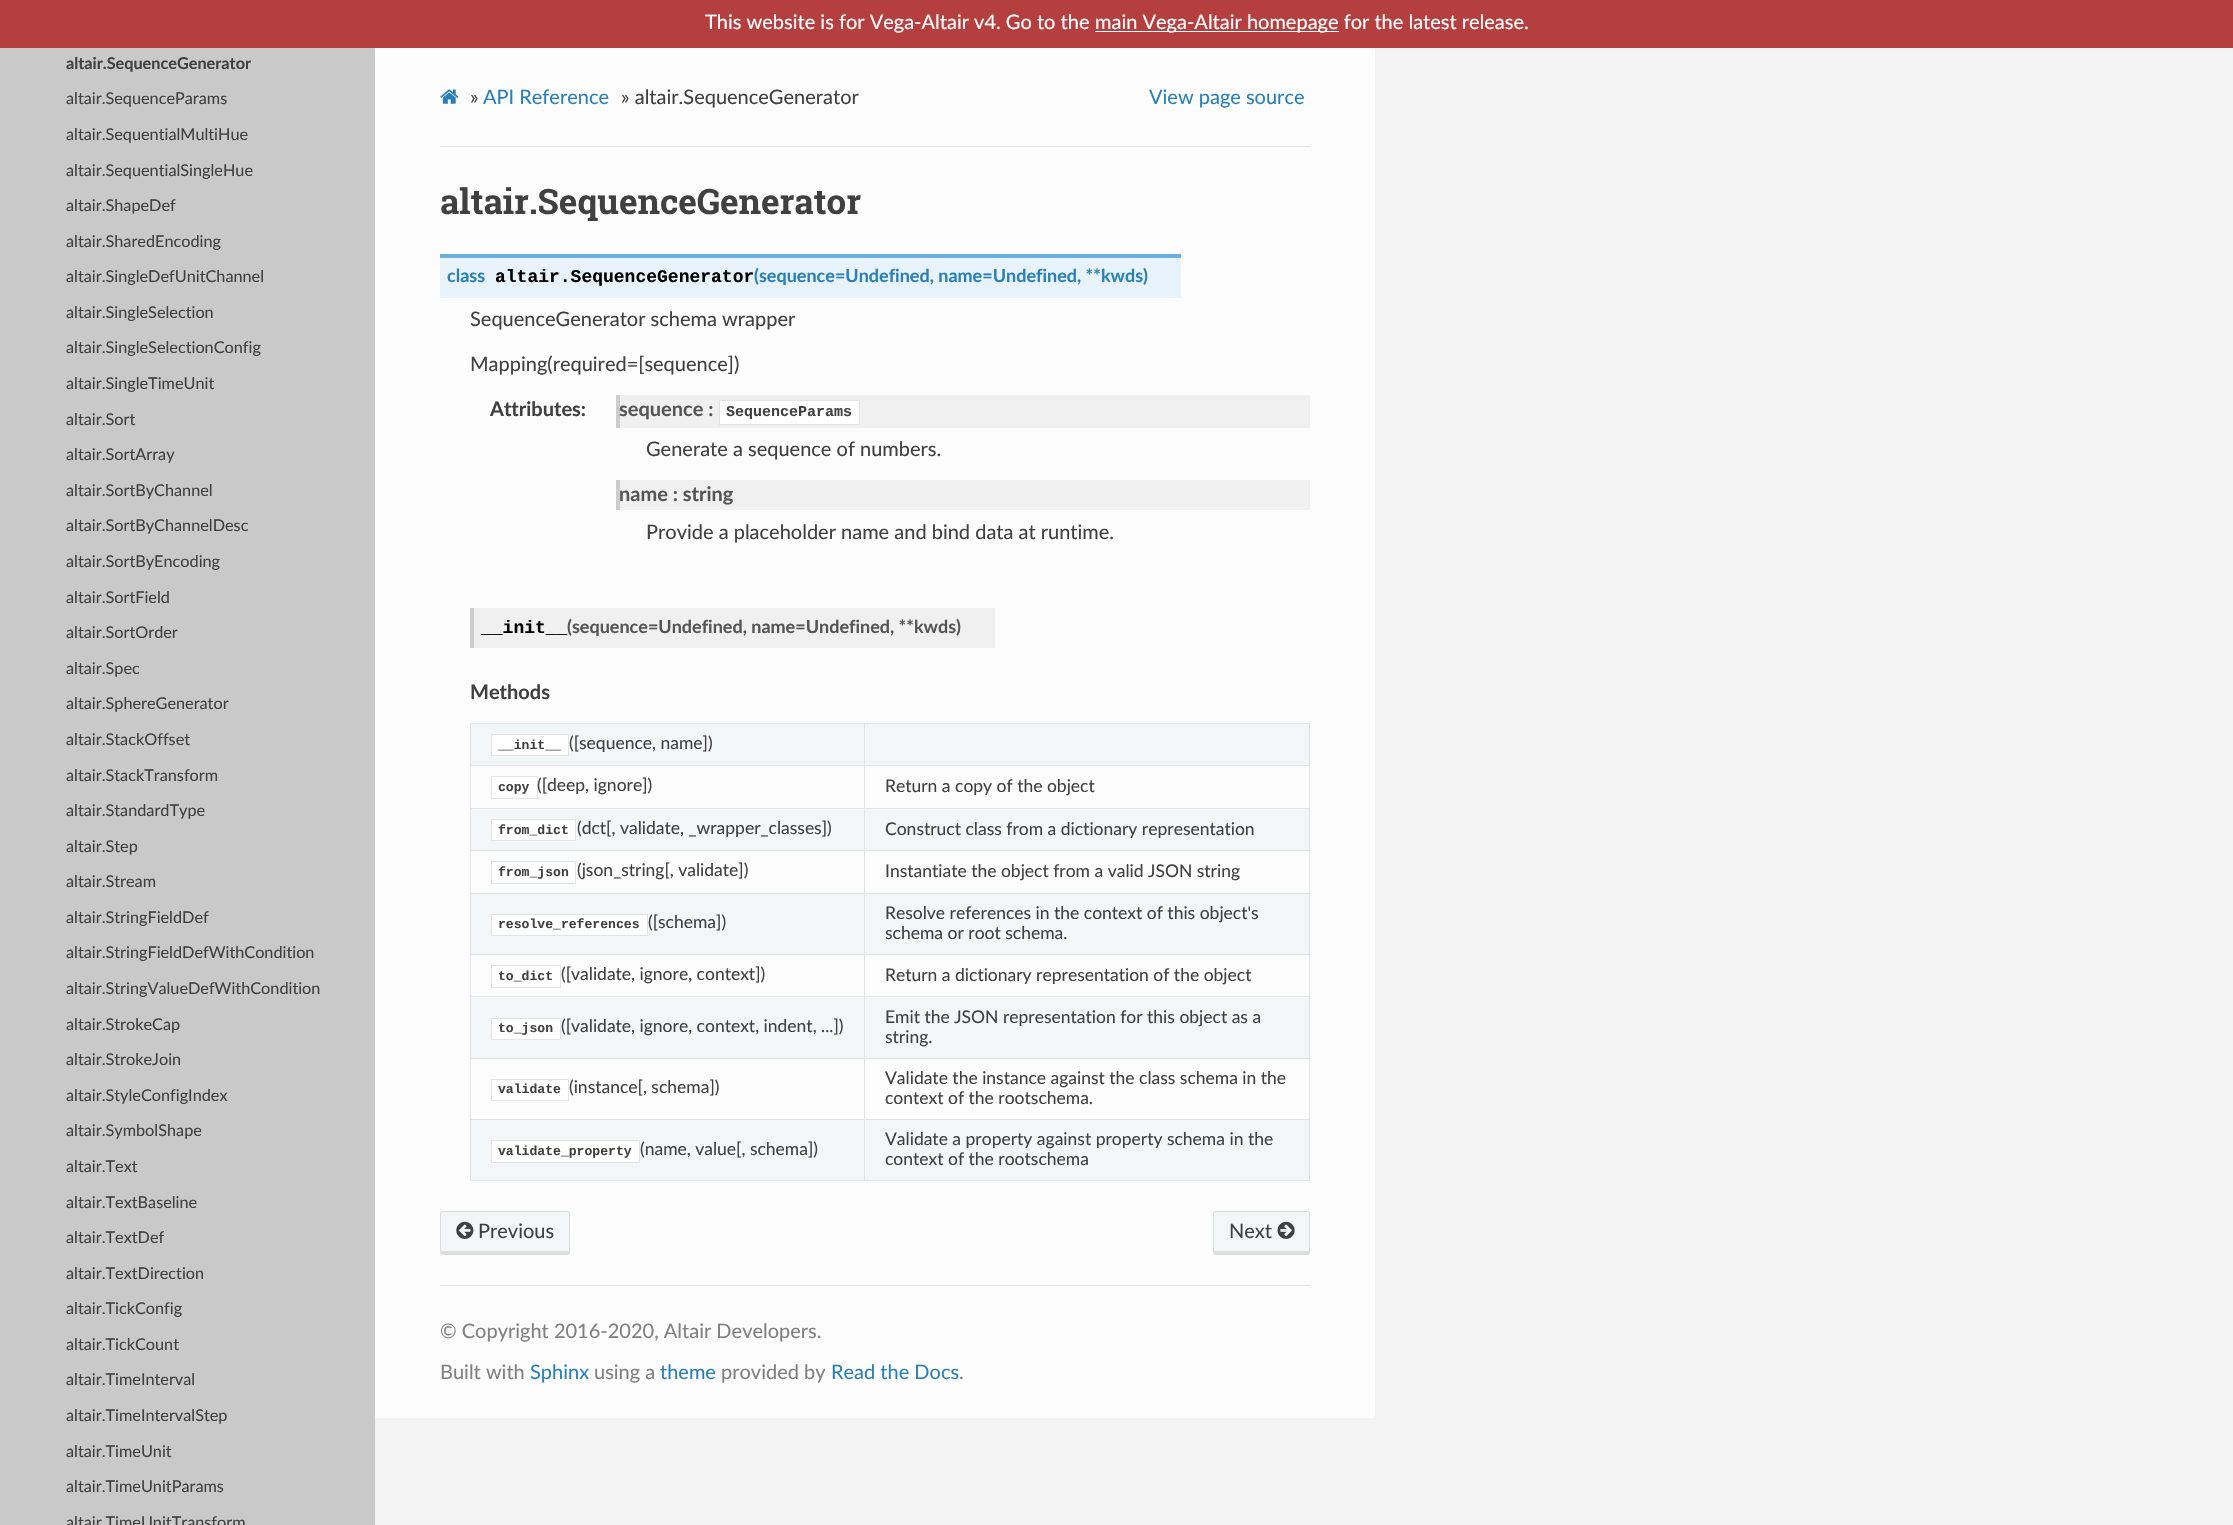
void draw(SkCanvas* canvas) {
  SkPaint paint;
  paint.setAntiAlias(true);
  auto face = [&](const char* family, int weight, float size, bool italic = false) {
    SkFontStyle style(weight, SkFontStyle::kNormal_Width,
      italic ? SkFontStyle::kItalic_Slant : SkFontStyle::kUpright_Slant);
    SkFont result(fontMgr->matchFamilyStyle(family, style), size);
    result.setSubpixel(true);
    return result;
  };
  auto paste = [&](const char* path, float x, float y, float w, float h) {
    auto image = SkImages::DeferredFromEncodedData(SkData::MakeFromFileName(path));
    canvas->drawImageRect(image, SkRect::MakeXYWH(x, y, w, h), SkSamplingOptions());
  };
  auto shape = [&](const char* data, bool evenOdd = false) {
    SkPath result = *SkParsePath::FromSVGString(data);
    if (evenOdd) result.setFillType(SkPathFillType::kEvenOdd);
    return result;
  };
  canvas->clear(0xfff3f3f3);
  {
    const struct { float x, y, w, h; SkColor color; } items[] = {
      {0, 0, 2233, 48, 0xffb53e3e},
      {1095, 31, 244, 1, 0xffffffff},
      {0, 48, 375, 1477, 0xffc9c9c9},
      {375, 48, 1000, 1370, 0xfffcfcfc},
    };
    for (auto [x, y, w, h, color] : items) {
      paint.setColor(color);
      canvas->drawRect(SkRect::MakeXYWH(x, y, w, h), paint);
    }
  }
  paste("img/1.png", 440, 89, 19, 15);
  {
    const struct { float x, y, w, h; SkColor color; } items[] = {
      {440, 146, 870, 1, 0xffe1e4e5},
      {440, 258, 741, 40, 0xffe7f2fa},
      {440, 254, 741, 4, 0xff6ab0de},
      {620, 395, 690, 33, 0xfff0f0f0},
      {616, 395, 4, 33, 0xffcccccc},
    };
    for (auto [x, y, w, h, color] : items) {
      paint.setColor(color);
      canvas->drawRect(SkRect::MakeXYWH(x, y, w, h), paint);
    }
  }
  paint.setColor(0xffffffff);
  canvas->drawRect(SkRect::MakeXYWH(719.5f, 400.5f, 140, 24), paint);
  paint.setStroke(true);
  paint.setStrokeWidth(1);
  paint.setColor(0xffe1e4e5);
  canvas->drawRect(SkRect::MakeXYWH(719.5f, 400.5f, 140, 24), paint);
  paint.setStroke(false);
  {
    const struct { float x, y, w, h; SkColor color; } items[] = {
      {620, 480, 690, 30, 0xfff0f0f0},
      {616, 480, 4, 30, 0xffcccccc},
      {474, 608, 521, 40, 0xfff0f0f0},
      {470, 608, 4, 40, 0xffcccccc},
      {470, 723, 840, 1, 0xffe1e4e5},
      {1309, 723, 1, 458, 0xffe1e4e5},
      {470, 1180, 840, 1, 0xffe1e4e5},
      {470, 723, 1, 458, 0xffe1e4e5},
      {471, 724, 393, 41, 0xfff3f6f6},
      {864, 1119, 1, 62, 0xffe1e4e5},
      {864, 1119, 446, 1, 0xffe1e4e5},
      {864, 1058, 1, 62, 0xffe1e4e5},
      {864, 1058, 446, 1, 0xffe1e4e5},
      {864, 996, 1, 63, 0xffe1e4e5},
      {864, 996, 446, 1, 0xffe1e4e5},
      {864, 954, 1, 44, 0xffe1e4e5},
      {864, 954, 446, 1, 0xffe1e4e5},
      {864, 893, 1, 62, 0xffe1e4e5},
      {864, 893, 446, 1, 0xffe1e4e5},
      {864, 850, 1, 44, 0xffe1e4e5},
      {864, 850, 446, 1, 0xffe1e4e5},
      {864, 808, 1, 43, 0xffe1e4e5},
      {864, 808, 446, 1, 0xffe1e4e5},
      {864, 765, 1, 44, 0xffe1e4e5},
      {864, 765, 446, 1, 0xffe1e4e5},
      {864, 723, 1, 43, 0xffe1e4e5},
      {470, 765, 395, 1, 0xffe1e4e5},
    };
    for (auto [x, y, w, h, color] : items) {
      paint.setColor(color);
      canvas->drawRect(SkRect::MakeXYWH(x, y, w, h), paint);
    }
  }
  paint.setColor(0xffffffff);
  canvas->drawRect(SkRect::MakeXYWH(491.5f, 734.5f, 77, 21), paint);
  paint.setStroke(true);
  paint.setColor(0xffe1e4e5);
  canvas->drawRect(SkRect::MakeXYWH(491.5f, 734.5f, 77, 21), paint);
  paint.setStroke(false);
  paint.setColor(0xfff3f6f6);
  canvas->drawRect(SkRect::MakeXYWH(865, 724, 444, 41), paint);
  paint.setColor(0xffe1e4e5);
  canvas->drawRect(SkRect::MakeXYWH(470, 808, 395, 1), paint);
  paint.setColor(0xffffffff);
  canvas->drawRect(SkRect::MakeXYWH(491.5f, 776.5f, 46, 22), paint);
  paint.setStroke(true);
  paint.setColor(0xffe1e4e5);
  canvas->drawRect(SkRect::MakeXYWH(491.5f, 776.5f, 46, 22), paint);
  paint.setStroke(false);
  paint.setColor(0xfff3f6f6);
  canvas->drawRect(SkRect::MakeXYWH(471, 809, 393, 41), paint);
  paint.setColor(0xffe1e4e5);
  canvas->drawRect(SkRect::MakeXYWH(470, 850, 395, 1), paint);
  paint.setColor(0xffffffff);
  canvas->drawRect(SkRect::MakeXYWH(491.5f, 819.5f, 84, 21), paint);
  paint.setStroke(true);
  paint.setColor(0xffe1e4e5);
  canvas->drawRect(SkRect::MakeXYWH(491.5f, 819.5f, 84, 21), paint);
  paint.setStroke(false);
  paint.setColor(0xfff3f6f6);
  canvas->drawRect(SkRect::MakeXYWH(865, 809, 444, 41), paint);
  paint.setColor(0xffe1e4e5);
  canvas->drawRect(SkRect::MakeXYWH(470, 893, 395, 1), paint);
  paint.setColor(0xffffffff);
  canvas->drawRect(SkRect::MakeXYWH(491.5f, 861.5f, 84, 22), paint);
  paint.setStroke(true);
  paint.setColor(0xffe1e4e5);
  canvas->drawRect(SkRect::MakeXYWH(491.5f, 861.5f, 84, 22), paint);
  paint.setStroke(false);
  paint.setColor(0xfff3f6f6);
  canvas->drawRect(SkRect::MakeXYWH(471, 894, 393, 60), paint);
  paint.setColor(0xffe1e4e5);
  canvas->drawRect(SkRect::MakeXYWH(470, 954, 395, 1), paint);
  paint.setColor(0xffffffff);
  canvas->drawRect(SkRect::MakeXYWH(491.5f, 914.5f, 156, 21), paint);
  paint.setStroke(true);
  paint.setColor(0xffe1e4e5);
  canvas->drawRect(SkRect::MakeXYWH(491.5f, 914.5f, 156, 21), paint);
  paint.setStroke(false);
  paint.setColor(0xfff3f6f6);
  canvas->drawRect(SkRect::MakeXYWH(865, 894, 444, 60), paint);
  paint.setColor(0xffe1e4e5);
  canvas->drawRect(SkRect::MakeXYWH(470, 996, 395, 1), paint);
  paint.setColor(0xffffffff);
  canvas->drawRect(SkRect::MakeXYWH(491.5f, 965.5f, 69, 22), paint);
  paint.setStroke(true);
  paint.setColor(0xffe1e4e5);
  canvas->drawRect(SkRect::MakeXYWH(491.5f, 965.5f, 69, 22), paint);
  paint.setStroke(false);
  paint.setColor(0xfff3f6f6);
  canvas->drawRect(SkRect::MakeXYWH(471, 998, 393, 60), paint);
  paint.setColor(0xffe1e4e5);
  canvas->drawRect(SkRect::MakeXYWH(470, 1058, 395, 1), paint);
  paint.setColor(0xffffffff);
  canvas->drawRect(SkRect::MakeXYWH(491.5f, 1018.5f, 69, 21), paint);
  paint.setStroke(true);
  paint.setColor(0xffe1e4e5);
  canvas->drawRect(SkRect::MakeXYWH(491.5f, 1018.5f, 69, 21), paint);
  paint.setStroke(false);
  paint.setColor(0xfff3f6f6);
  canvas->drawRect(SkRect::MakeXYWH(865, 998, 444, 60), paint);
  paint.setColor(0xffe1e4e5);
  canvas->drawRect(SkRect::MakeXYWH(470, 1119, 395, 1), paint);
  paint.setColor(0xffffffff);
  canvas->drawRect(SkRect::MakeXYWH(491.5f, 1079.5f, 77, 21), paint);
  paint.setStroke(true);
  paint.setColor(0xffe1e4e5);
  canvas->drawRect(SkRect::MakeXYWH(491.5f, 1079.5f, 77, 21), paint);
  paint.setStroke(false);
  paint.setColor(0xfff3f6f6);
  canvas->drawRect(SkRect::MakeXYWH(471, 1120, 393, 60), paint);
  paint.setColor(0xffffffff);
  canvas->drawRect(SkRect::MakeXYWH(491.5f, 1140.5f, 148, 22), paint);
  paint.setStroke(true);
  paint.setColor(0xffe1e4e5);
  canvas->drawRect(SkRect::MakeXYWH(491.5f, 1140.5f, 148, 22), paint);
  paint.setStroke(false);
  paint.setColor(0xfff3f6f6);
  canvas->drawRect(SkRect::MakeXYWH(865, 1120, 444, 60), paint);
  canvas->drawRoundRect(SkRect::MakeXYWH(440, 1211, 130, 44), 2.5f, 2.5f, paint);
  paint.setColor(0xffdbdddd);
  canvas->drawPath(shape("M441 1250V1253C441 1254 441 1254 442 1254H568C569 1254 569 1254 569 1253V1250V1251H505H442Z"), paint);
  paint.setStroke(true);
  canvas->drawRoundRect(SkRect::MakeXYWH(440.5f, 1211.5f, 129, 43), 2, 2, paint);
  paste("img/2.png", 456, 1221, 18, 18);
  paint.setStroke(false);
  paint.setColor(0xfff3f6f6);
  canvas->drawRoundRect(SkRect::MakeXYWH(1213, 1211, 97, 44), 2.5f, 2.5f, paint);
  paint.setColor(0xffdbdddd);
  canvas->drawPath(shape("M1214 1250V1253C1214 1254 1214 1254 1215 1254H1308C1309 1254 1309 1254 1309 1253V1250L1308 1251H1215C1214 1251 1214 1251 1214 1250Z"), paint);
  paint.setStroke(true);
  canvas->drawRoundRect(SkRect::MakeXYWH(1213.5f, 1211.5f, 96, 43), 2, 2, paint);
  paste("img/3.png", 1277, 1221, 18, 18);
  paint.setStroke(false);
  paint.setColor(0xffe1e4e5);
  canvas->drawRect(SkRect::MakeXYWH(440, 1285, 870, 1), paint);
  auto f0 = face("Lato", 400, 20);
  paint.setColor(0xffffffff);
  canvas->drawString("This website is for Vega-Altair v4. Go to the", 705, 29, f0, paint);
  canvas->drawString("main Vega-Altair homepage for the latest release.", 1095, 29, f0, paint);
  auto f1 = face("Lato", 700, 16.25f);
  paint.setColor(0xff404040);
  canvas->drawString("altair.SequenceGenerator", 66, 69, f1, paint);
  auto f2 = face("Lato", 400, 16.25f);
  {
    const struct { const char* s; float x, y; } items[] = {
      {"altair.SequenceParams", 66, 104},
      {"altair.SequentialMultiHue", 66, 140},
      {"altair.SequentialSingleHue", 66, 176},
      {"altair.ShapeDef", 66, 211},
      {"altair.SharedEncoding", 66, 247},
      {"altair.SingleDefUnitChannel", 66, 282},
      {"altair.SingleSelection", 66, 318},
      {"altair.SingleSelectionConfig", 66, 353},
      {"altair.SingleTimeUnit", 66, 389},
      {"altair.Sort", 66, 425},
      {"altair.SortArray", 66, 460},
      {"altair.SortByChannel", 66, 496},
      {"altair.SortByChannelDesc", 66, 531},
      {"altair.SortByEncoding", 66, 567},
      {"altair.SortField", 66, 603},
      {"altair.SortOrder", 66, 638},
      {"altair.Spec", 66, 674},
      {"altair.SphereGenerator", 66, 709},
      {"altair.StackOffset", 66, 745},
      {"altair.StackTransform", 66, 781},
      {"altair.StandardType", 66, 816},
      {"altair.Step", 66, 852},
      {"altair.Stream", 66, 887},
      {"altair.StringFieldDef", 66, 923},
      {"altair.StringFieldDefWithCondition", 66, 958},
      {"altair.StringValueDefWithCondition", 66, 994},
      {"altair.StrokeCap", 66, 1030},
      {"altair.StrokeJoin", 66, 1065},
      {"altair.StyleConfigIndex", 66, 1101},
      {"altair.SymbolShape", 66, 1136},
      {"altair.Text", 66, 1172},
      {"altair.TextBaseline", 66, 1208},
      {"altair.TextDef", 66, 1243},
      {"altair.TextDirection", 66, 1279},
      {"altair.TickConfig", 66, 1314},
      {"altair.TickCount", 66, 1350},
      {"altair.TimeInterval", 66, 1385},
      {"altair.TimeIntervalStep", 66, 1421},
      {"altair.TimeUnit", 66, 1457},
      {"altair.TimeUnitParams", 66, 1492},
      {"altair.TimeUnitTransform", 66, 1528},
    };
    for (auto [s, x, y] : items) {
      canvas->drawString(s, x, y, f2, paint);
    }
  }
  canvas->drawString("»", 470, 104, f0, paint);
  paint.setColor(0xff2980b9);
  canvas->drawString("API Reference", 483, 104, f0, paint);
  paint.setColor(0xff404040);
  canvas->drawString("» altair.SequenceGenerator", 621, 104, f0, paint);
  paint.setColor(0xff2980b9);
  canvas->drawString("View page source", 1149, 104, f0, paint);
  auto f3 = face("Roboto Slab", 700, 35);
  paint.setColor(0xff404040);
  canvas->drawString("altair.SequenceGenerator", 440, 214, f3, paint);
  auto f4 = face("Lato", 700, 18);
  paint.setColor(0xff2980b9);
  canvas->drawString("class", 447, 282, f4, paint);
  auto f5 = face("Liberation Mono", 700, 18);
  paint.setColor(0xff000000);
  canvas->drawString("altair.SequenceGenerator", 495, 282, f5, paint);
  paint.setColor(0xff2980b9);
  canvas->drawString("(sequence=Undefined, name=Undefined, **kwds)", 754, 282, f4, paint);
  paint.setColor(0xff404040);
  canvas->drawString("SequenceGenerator schema wrapper", 470, 326, f0, paint);
  canvas->drawString("Mapping(required=[sequence])", 470, 371, f0, paint);
  auto f6 = face("Lato", 700, 20);
  canvas->drawString("Attributes:", 490, 416, f6, paint);
  paint.setColor(0xff555555);
  canvas->drawString("sequence :", 619, 416, f6, paint);
  auto f7 = face("Liberation Mono", 700, 15);
  paint.setColor(0xff404040);
  canvas->drawString("SequenceParams", 726, 416, f7, paint);
  canvas->drawString("Generate a sequence of numbers.", 646, 456, f0, paint);
  paint.setColor(0xff555555);
  canvas->drawString("name : string", 619, 501, f6, paint);
  paint.setColor(0xff404040);
  canvas->drawString("Provide a placeholder name and bind data at runtime.", 646, 539, f0, paint);
  paint.setColor(0xff000000);
  canvas->drawString("__init__", 481, 633, f5, paint);
  paint.setColor(0xff555555);
  canvas->drawString("(sequence=Undefined, name=Undefined, **kwds)", 567, 633, f4, paint);
  paint.setColor(0xff404040);
  canvas->drawString("Methods", 470, 699, f6, paint);
  auto f8 = face("Liberation Mono", 700, 13.1f);
  canvas->drawString("__init__", 498, 749, f8, paint);
  auto f9 = face("Lato", 400, 17.5f);
  canvas->drawString("([sequence, name])", 569, 749, f9, paint);
  canvas->drawString("copy", 498, 791, f8, paint);
  canvas->drawString("([deep, ignore])", 537, 791, f9, paint);
  canvas->drawString("Return a copy of the object", 885, 792, f9, paint);
  canvas->drawString("from_dict", 498, 834, f8, paint);
  canvas->drawString("(dct[, validate, _wrapper_classes])", 577, 834, f9, paint);
  canvas->drawString("Construct class from a dictionary representation", 885, 835, f9, paint);
  canvas->drawString("from_json", 498, 876, f8, paint);
  canvas->drawString("(json_string[, validate])", 577, 876, f9, paint);
  canvas->drawString("Instantiate the object from a valid JSON string", 885, 877, f9, paint);
  canvas->drawString("resolve_references", 498, 928, f8, paint);
  {
    const struct { const char* s; float x, y; } items[] = {
      {"([schema])", 648, 928},
      {"Resolve references in the context of this object's", 885, 919},
      {"schema or root schema.", 885, 939},
    };
    for (auto [s, x, y] : items) {
      canvas->drawString(s, x, y, f9, paint);
    }
  }
  canvas->drawString("to_dict", 498, 980, f8, paint);
  canvas->drawString("([validate, ignore, context])", 561, 980, f9, paint);
  canvas->drawString("Return a dictionary representation of the object", 885, 981, f9, paint);
  canvas->drawString("to_json", 498, 1032, f8, paint);
  {
    const struct { const char* s; float x, y; } items[] = {
      {"([validate, ignore, context, indent, ...])", 561, 1032},
      {"Emit the JSON representation for this object as a", 885, 1023},
      {"string.", 885, 1043},
    };
    for (auto [s, x, y] : items) {
      canvas->drawString(s, x, y, f9, paint);
    }
  }
  canvas->drawString("validate", 498, 1093, f8, paint);
  {
    const struct { const char* s; float x, y; } items[] = {
      {"(instance[, schema])", 569, 1093},
      {"Validate the instance against the class schema in the", 885, 1084},
      {"context of the rootschema.", 885, 1104},
    };
    for (auto [s, x, y] : items) {
      canvas->drawString(s, x, y, f9, paint);
    }
  }
  canvas->drawString("validate_property", 498, 1155, f8, paint);
  {
    const struct { const char* s; float x, y; } items[] = {
      {"(name, value[, schema])", 640, 1155},
      {"Validate a property against property schema in the", 885, 1145},
      {"context of the rootschema", 885, 1165},
    };
    for (auto [s, x, y] : items) {
      canvas->drawString(s, x, y, f9, paint);
    }
  }
  canvas->drawString("Previous", 478, 1238, f0, paint);
  canvas->drawString("Next", 1229, 1238, f0, paint);
  paint.setColor(0xff808080);
  canvas->drawString("© Copyright 2016-2020, Altair Developers.", 440, 1338, f0, paint);
  canvas->drawString("Built with", 440, 1379, f0, paint);
  paint.setColor(0xff2980b9);
  canvas->drawString("Sphinx", 530, 1379, f0, paint);
  paint.setColor(0xff808080);
  canvas->drawString("using a", 594, 1379, f0, paint);
  paint.setColor(0xff2980b9);
  canvas->drawString("theme", 660, 1379, f0, paint);
  paint.setColor(0xff808080);
  canvas->drawString("provided by", 721, 1379, f0, paint);
  paint.setColor(0xff2980b9);
  canvas->drawString("Read the Docs", 831, 1379, f0, paint);
  paint.setColor(0xff808080);
  canvas->drawString(".", 959, 1379, f0, paint);
}
